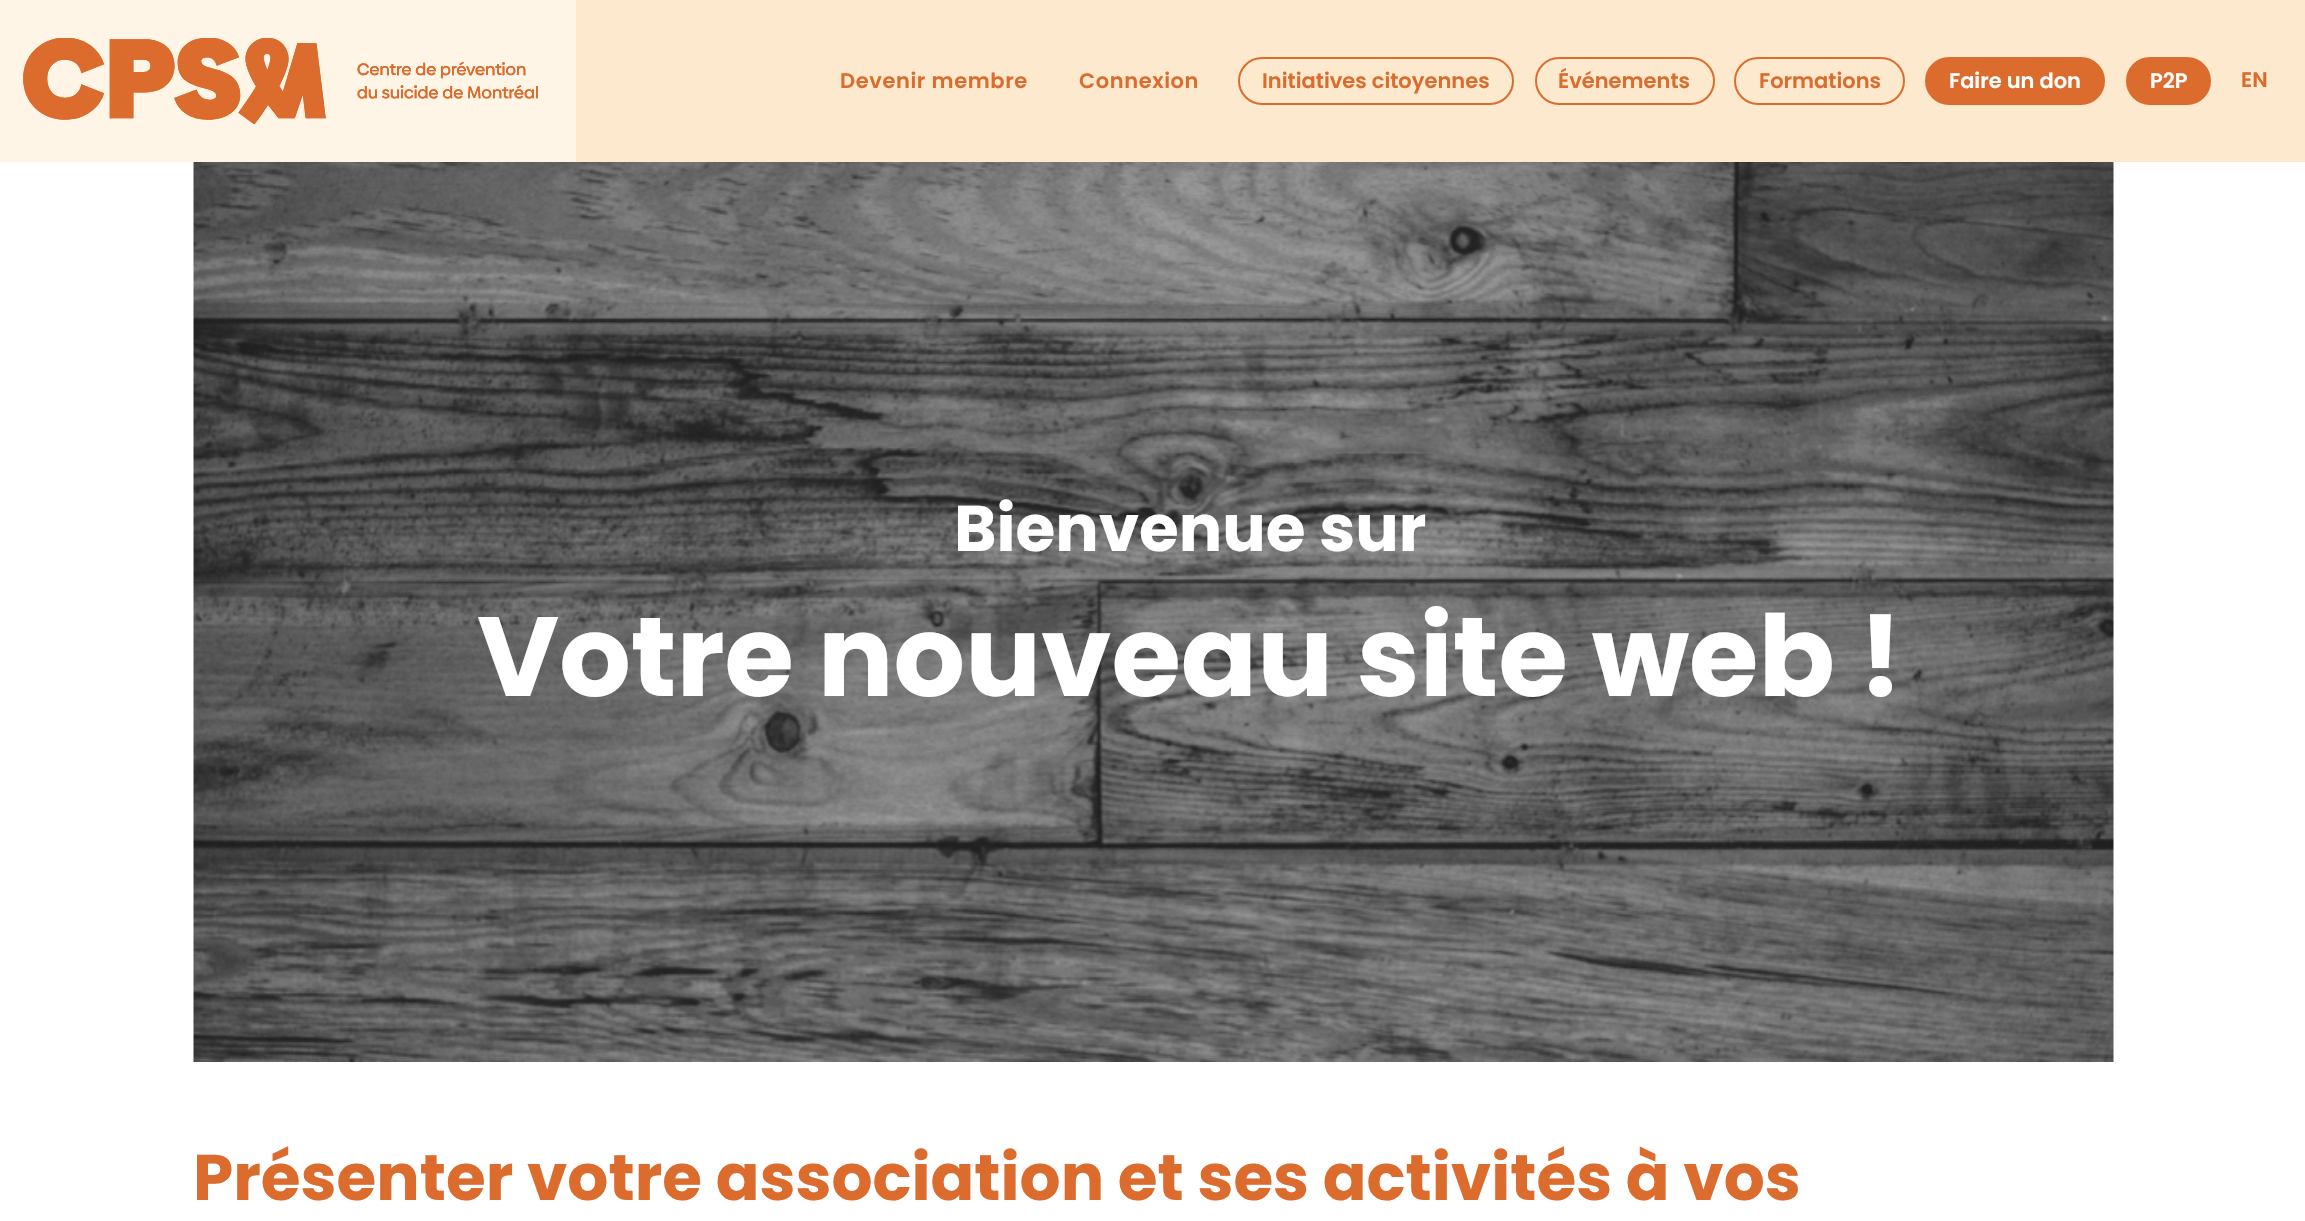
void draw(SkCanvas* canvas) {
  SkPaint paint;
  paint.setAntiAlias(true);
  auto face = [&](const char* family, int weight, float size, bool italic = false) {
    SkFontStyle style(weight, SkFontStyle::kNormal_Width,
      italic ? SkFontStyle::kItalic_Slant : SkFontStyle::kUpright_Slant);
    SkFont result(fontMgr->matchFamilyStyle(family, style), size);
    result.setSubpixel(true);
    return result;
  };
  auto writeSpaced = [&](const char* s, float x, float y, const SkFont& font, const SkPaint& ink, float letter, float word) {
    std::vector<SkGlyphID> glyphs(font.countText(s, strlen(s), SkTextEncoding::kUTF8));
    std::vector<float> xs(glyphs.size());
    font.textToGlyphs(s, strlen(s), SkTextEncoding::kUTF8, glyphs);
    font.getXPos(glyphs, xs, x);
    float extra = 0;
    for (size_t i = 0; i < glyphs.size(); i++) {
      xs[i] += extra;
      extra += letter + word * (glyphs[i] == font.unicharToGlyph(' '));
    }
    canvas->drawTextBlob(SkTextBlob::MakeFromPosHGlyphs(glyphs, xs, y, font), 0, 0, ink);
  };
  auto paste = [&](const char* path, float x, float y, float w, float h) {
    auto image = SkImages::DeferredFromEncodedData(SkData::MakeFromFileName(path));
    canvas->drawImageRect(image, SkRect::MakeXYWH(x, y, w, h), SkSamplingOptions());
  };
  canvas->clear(0xffffffff);
  paint.setColor(0xfffef5e6);
  canvas->drawRect(SkRect::MakeXYWH(0, 0, 576, 162), paint);
  paste("img/1.png", 23, 38, 515, 87);
  paint.setColor(0xfffde9ce);
  canvas->drawRect(SkRect::MakeXYWH(576, 0, 1729, 162), paint);
  paint.setStroke(true);
  paint.setStrokeWidth(2);
  paint.setColor(0xffdb6c2e);
  canvas->drawRoundRect(SkRect::MakeXYWH(1239, 58, 274, 46), 23, 23, paint);
  canvas->drawRoundRect(SkRect::MakeXYWH(1536, 58, 178, 46), 23, 23, paint);
  canvas->drawRoundRect(SkRect::MakeXYWH(1735, 58, 169, 46), 23, 23, paint);
  paint.setStroke(false);
  canvas->drawRoundRect(SkRect::MakeXYWH(1926, 58, 178, 46), 23, 23, paint);
  paint.setStroke(true);
  canvas->drawRoundRect(SkRect::MakeXYWH(1926, 58, 178, 46), 23, 23, paint);
  paint.setStroke(false);
  canvas->drawRoundRect(SkRect::MakeXYWH(2127, 58, 83, 46), 23, 23, paint);
  paint.setStroke(true);
  canvas->drawRoundRect(SkRect::MakeXYWH(2127, 58, 83, 46), 23, 23, paint);
  paste("img/2.png", 193, 162, 1921, 900);
  auto f0 = face("Poppins", 600, 21);
  paint.setStroke(false);
  writeSpaced("Devenir membre", 840, 88, f0, paint, 0.6f, 0);
  writeSpaced("Connexion", 1079, 88, f0, paint, 0.6f, 0);
  {
    const struct { const char* s; float x, y; } items[] = {
      {"Initiatives citoyennes", 1262, 88},
      {"Événements", 1558, 88},
      {"Formations", 1759, 88},
    };
    for (auto [s, x, y] : items) {
      canvas->drawString(s, x, y, f0, paint);
    }
  }
  paint.setColor(0xffffffff);
  canvas->drawString("Faire un don", 1949, 88, f0, paint);
  canvas->drawString("P2P", 2150, 88, f0, paint);
  paint.setColor(0xffdb6c2e);
  canvas->drawString("EN", 2241, 87, f0, paint);
  auto f1 = face("Poppins", 700, 64.5f);
  paint.setColor(0xffffffff);
  canvas->drawString("Bienvenue sur", 954, 551, f1, paint);
  auto f2 = face("Poppins", 700, 112.5f);
  canvas->drawString("Votre nouveau site web !", 477, 696, f2, paint);
  paint.setColor(0xffdb6c2e);
  canvas->drawString("Présenter votre association et ses activités à vos", 193, 1200, f1, paint);
}
